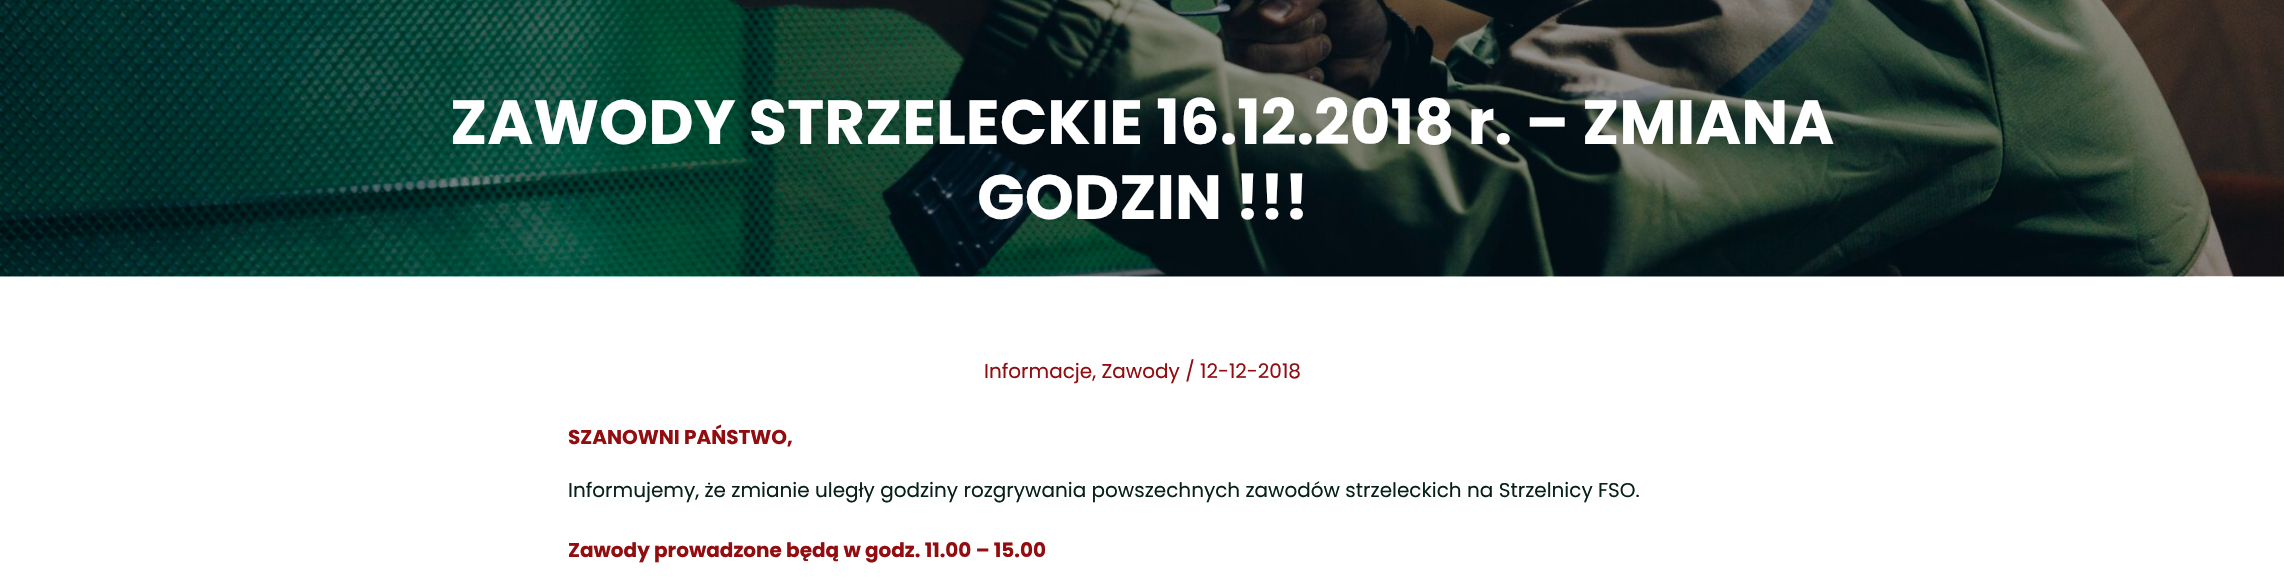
void draw(SkCanvas* canvas) {
  SkPaint paint;
  paint.setAntiAlias(true);
  auto face = [&](const char* family, int weight, float size, bool italic = false) {
    SkFontStyle style(weight, SkFontStyle::kNormal_Width,
      italic ? SkFontStyle::kItalic_Slant : SkFontStyle::kUpright_Slant);
    SkFont result(fontMgr->matchFamilyStyle(family, style), size);
    result.setSubpixel(true);
    return result;
  };
  auto paste = [&](const char* path, float x, float y, float w, float h) {
    auto image = SkImages::DeferredFromEncodedData(SkData::MakeFromFileName(path));
    canvas->drawImageRect(image, SkRect::MakeXYWH(x, y, w, h), SkSamplingOptions());
  };
  canvas->clear(0xffffffff);
  paste("img/1.png", 0, 0, 2284, 277);
  auto f0 = face("Poppins", 700, 62.5f);
  paint.setColor(0xffffffff);
  canvas->drawString("ZAWODY STRZELECKIE 16.12.2018 r. – ZMIANA", 450, 144, f0, paint);
  canvas->drawString("GODZIN !!!", 977, 219, f0, paint);
  auto f1 = face("Poppins", 400, 20);
  paint.setColor(0xff920c10);
  canvas->drawString("Informacje, Zawody / 12-12-2018", 984, 378, f1, paint);
  auto f2 = face("Poppins", 700, 20);
  canvas->drawString("SZANOWNI PAŃSTWO,", 568, 444, f2, paint);
  paint.setColor(0xff072116);
  canvas->drawString("Informujemy, że zmianie uległy godziny rozgrywania powszechnych zawodów strzeleckich na Strzelnicy FSO.", 568, 497, f1, paint);
  paint.setColor(0xff920c10);
  canvas->drawString("Zawody prowadzone będą w godz. 11.00 – 15.00", 568, 557, f2, paint);
}
